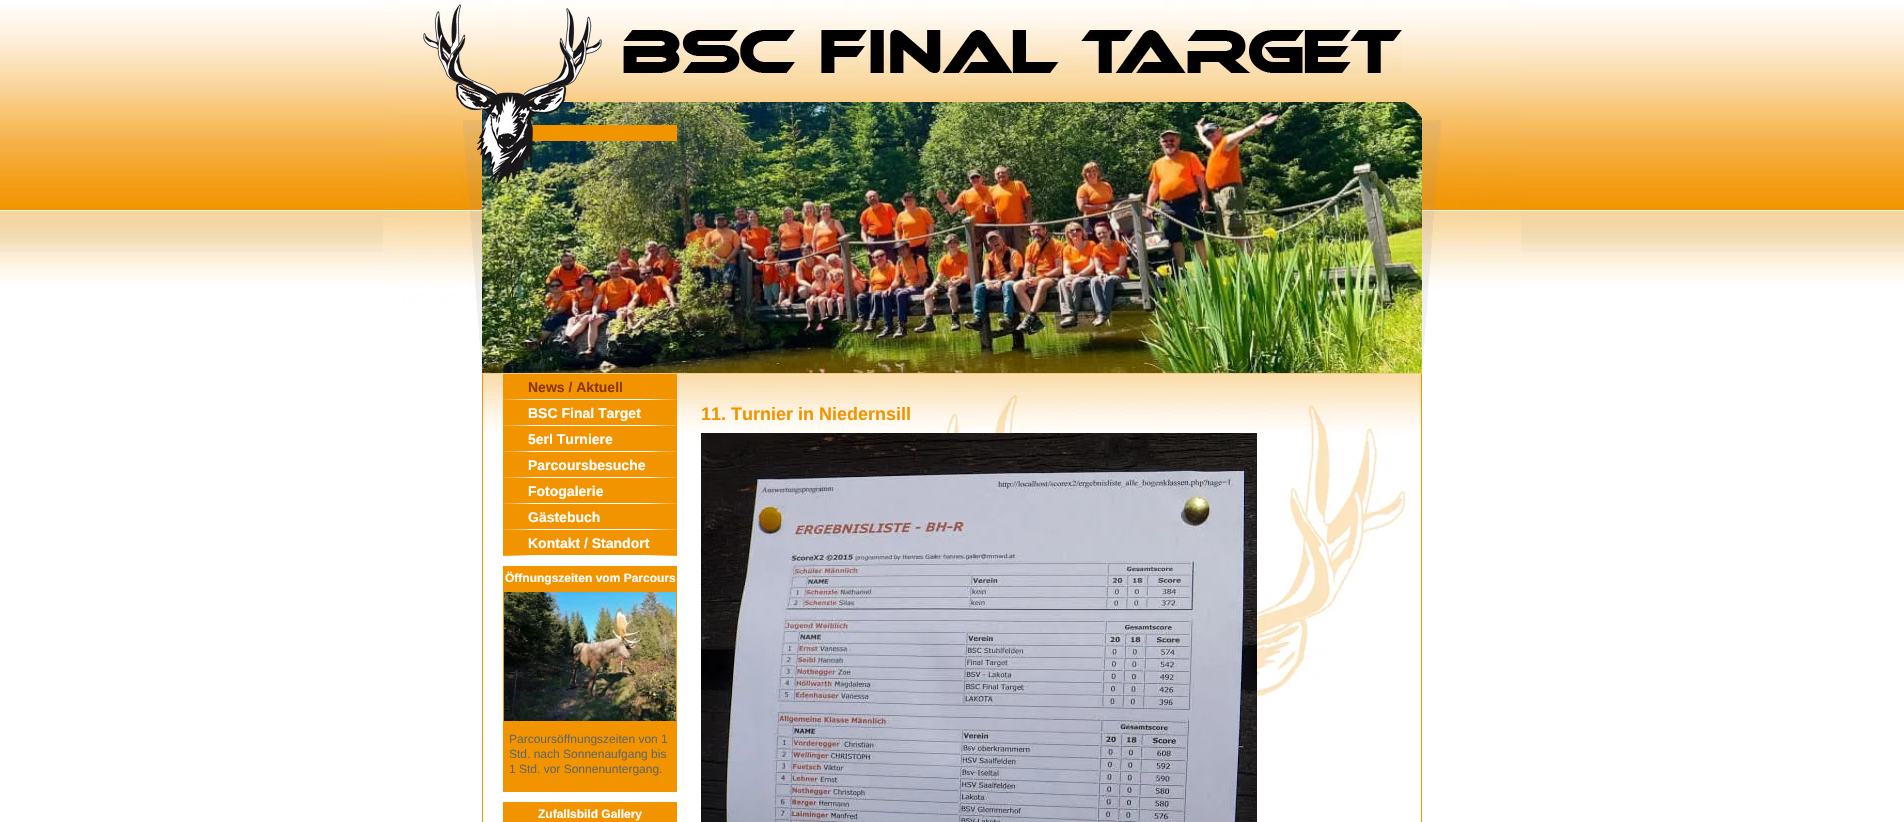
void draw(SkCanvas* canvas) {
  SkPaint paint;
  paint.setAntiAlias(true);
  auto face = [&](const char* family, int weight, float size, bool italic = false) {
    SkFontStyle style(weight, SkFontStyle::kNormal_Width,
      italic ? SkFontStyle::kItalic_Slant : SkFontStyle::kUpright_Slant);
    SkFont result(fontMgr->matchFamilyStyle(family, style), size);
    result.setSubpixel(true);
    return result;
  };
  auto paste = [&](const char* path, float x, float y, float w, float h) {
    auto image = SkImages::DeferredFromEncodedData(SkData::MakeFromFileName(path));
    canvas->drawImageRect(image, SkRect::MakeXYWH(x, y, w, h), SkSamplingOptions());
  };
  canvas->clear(0xffffffff);
  paste("img/1.png", 0, 6, 1904, 276);
  paste("img/2.png", 383, 0, 1138, 371);
  paste("img/5.png", 482, 102, 940, 271);
  paint.setColor(0xfff29400);
  canvas->drawRect(SkRect::MakeXYWH(531, 125, 146, 16), paint);
  paste("img/3.png", 481, 8, 121, 177);
  paste("img/4.png", 623, 30, 779, 43);
  paint.setColor(0xfff8ca81);
  canvas->drawRect(SkRect::MakeXYWH(482, 373, 940, 1), paint);
  paste("img/6.png", 1404, 102, 18, 17);
  paste("img/7.png", 483, 374, 938, 448);
  {
    const struct { float x, y, w, h; SkColor color; } items[] = {
      {1421, 374, 1, 448, 0xfff39503},
      {482, 374, 1, 448, 0xfff39503},
      {503, 374, 174, 181, 0xfff29400},
    };
    for (auto [x, y, w, h, color] : items) {
      paint.setColor(color);
      canvas->drawRect(SkRect::MakeXYWH(x, y, w, h), paint);
    }
  }
  paste("img/8.png", 503, 399, 174, 1);
  paste("img/8.png", 503, 425, 174, 1);
  paste("img/8.png", 503, 451, 174, 1);
  paste("img/8.png", 503, 477, 174, 1);
  paste("img/8.png", 503, 503, 174, 1);
  paste("img/8.png", 503, 529, 174, 1);
  paste("img/8.png", 503, 555, 174, 1);
  canvas->drawRect(SkRect::MakeXYWH(503, 566, 174, 226), paint);
  paste("img/9.png", 504, 592, 172, 129);
  canvas->drawRect(SkRect::MakeXYWH(503, 802, 174, 20), paint);
  paste("img/10.png", 701, 433, 556, 389);
  auto f0 = face("Liberation Sans", 700, 14);
  paint.setColor(0xff8b3507);
  canvas->drawString("News / Aktuell", 528, 392, f0, paint);
  paint.setColor(0xffffffff);
  {
    const struct { const char* s; float x, y; } items[] = {
      {"BSC Final Target", 528, 418},
      {"5erl Turniere", 528, 444},
      {"Parcoursbesuche", 528, 470},
      {"Fotogalerie", 528, 496},
      {"Gästebuch", 528, 522},
      {"Kontakt / Standort", 528, 548},
    };
    for (auto [s, x, y] : items) {
      canvas->drawString(s, x, y, f0, paint);
    }
  }
  auto f1 = face("Liberation Sans", 700, 12);
  canvas->drawString("Öffnungszeiten vom Parcours", 505, 582, f1, paint);
  auto f2 = face("Liberation Sans", 400, 12);
  paint.setColor(0xff666666);
  {
    const struct { const char* s; float x, y; } items[] = {
      {"Parcoursöffnungszeiten von 1", 509, 743},
      {"Std. nach Sonnenaufgang bis", 509, 758},
      {"1 Std. vor Sonnenuntergang.", 509, 773},
    };
    for (auto [s, x, y] : items) {
      canvas->drawString(s, x, y, f2, paint);
    }
  }
  paint.setColor(0xffffffff);
  canvas->drawString("Zufallsbild Gallery", 538, 818, f1, paint);
  auto f3 = face("Liberation Sans", 700, 18);
  paint.setColor(0xfff29400);
  canvas->drawString("11. Turnier in Niedernsill", 701, 420, f3, paint);
}
